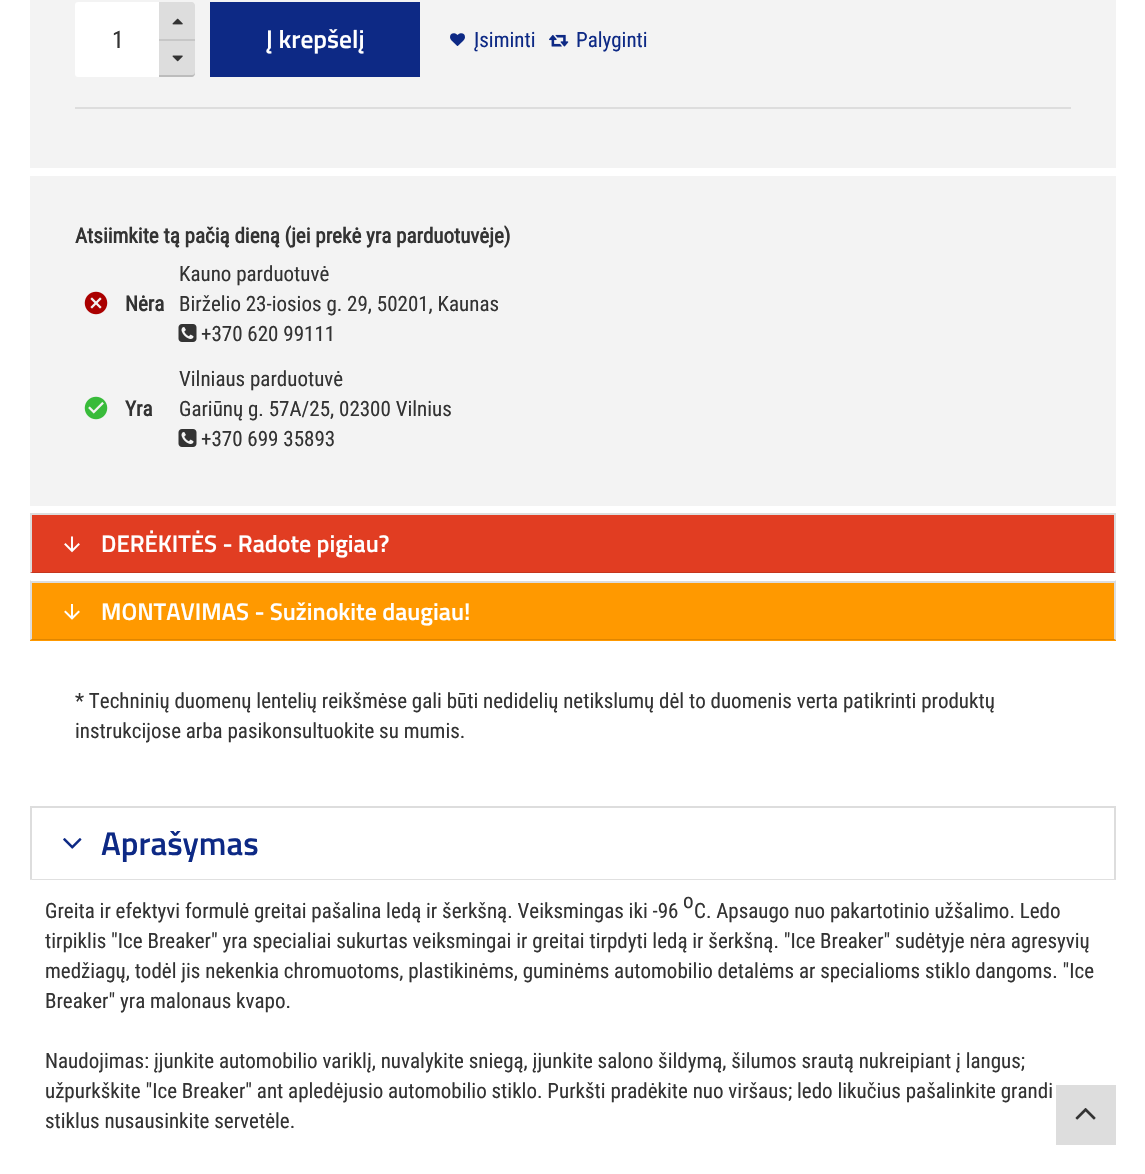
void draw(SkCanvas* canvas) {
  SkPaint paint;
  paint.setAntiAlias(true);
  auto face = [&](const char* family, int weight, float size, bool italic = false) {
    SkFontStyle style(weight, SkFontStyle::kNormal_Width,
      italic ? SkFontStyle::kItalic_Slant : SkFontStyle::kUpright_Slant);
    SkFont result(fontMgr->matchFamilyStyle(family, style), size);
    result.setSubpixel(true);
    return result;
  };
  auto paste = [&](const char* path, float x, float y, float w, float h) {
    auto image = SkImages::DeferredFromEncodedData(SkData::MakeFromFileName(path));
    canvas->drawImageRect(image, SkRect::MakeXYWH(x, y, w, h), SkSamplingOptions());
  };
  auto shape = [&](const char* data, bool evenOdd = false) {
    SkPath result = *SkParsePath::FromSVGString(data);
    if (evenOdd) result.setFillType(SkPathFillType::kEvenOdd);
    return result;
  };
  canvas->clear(0xffffffff);
  paint.setColor(0xfff3f3f3);
  canvas->drawRect(SkRect::MakeXYWH(30, 0, 1086, 168), paint);
  paint.setColor(0xffffffff);
  canvas->drawRoundRect(SkRect::MakeXYWH(76, 3, 118, 73), 2, 2, paint);
  paint.setStroke(true);
  paint.setStrokeWidth(2);
  canvas->drawRoundRect(SkRect::MakeXYWH(76, 3, 118, 73), 2, 2, paint);
  paint.setStroke(false);
  paint.setColor(0xffdddddd);
  canvas->drawPath(shape("M159 2H192C193.5 2 195 3.5 195 5V41H159Z"), paint);
  paste("img/1.png", 172, 18, 11, 7);
  canvas->drawPath(shape("M159 39H195V74C195 75.5 193.5 77 192 77H159Z"), paint);
  paint.setColor(0x26000000);
  canvas->drawPath(shape("M159 75V77H192C193.5 77 195 75.5 195 74V72C195 74 194 75 192 75Z"), paint);
  paint.setColor(0xffc7c7c7);
  canvas->drawRect(SkRect::MakeXYWH(159, 39, 36, 2), paint);
  paste("img/2.png", 172, 55, 11, 7);
  paint.setColor(0xff0d2985);
  canvas->drawRect(SkRect::MakeXYWH(210, 2, 210, 75), paint);
  paste("img/3.png", 450, 33, 15, 13);
  paste("img/4.png", 549, 34, 20, 13);
  paint.setColor(0xffdddddd);
  canvas->drawRect(SkRect::MakeXYWH(75, 107, 996, 2), paint);
  paint.setColor(0xfff3f3f3);
  canvas->drawRect(SkRect::MakeXYWH(30, 176, 1086, 330), paint);
  paste("img/5.png", 84, 291, 24, 24);
  paste("img/6.png", 178, 324, 19, 18);
  paste("img/7.png", 84, 396, 24, 24);
  paste("img/6.png", 178, 429, 19, 18);
  paint.setColor(0xffe13d22);
  canvas->drawRect(SkRect::MakeXYWH(30, 515, 1086, 58), paint);
  paint.setColor(0xffdddddd);
  canvas->drawRect(SkRect::MakeXYWH(30, 513, 1086, 2), paint);
  canvas->drawPath(shape("M1116 513V573L1114 572V514Z"), paint);
  paint.setColor(0x1f000000);
  canvas->drawPath(shape("M1116 573H30L32 572H1114Z"), paint);
  paint.setColor(0xffdddddd);
  canvas->drawPath(shape("M30 573V513L32 514V572Z"), paint);
  paste("img/8.png", 64, 536, 16, 17);
  paint.setColor(0xffff9900);
  canvas->drawRect(SkRect::MakeXYWH(30, 583, 1086, 58), paint);
  paint.setColor(0xffdddddd);
  canvas->drawRect(SkRect::MakeXYWH(30, 581, 1086, 2), paint);
  canvas->drawPath(shape("M1116 580V640L1114 639V582Z"), paint);
  paint.setColor(0x1f000000);
  canvas->drawPath(shape("M1116 640H30L32 639H1114Z"), paint);
  paint.setColor(0xffdddddd);
  canvas->drawPath(shape("M30 640V580L32 582V639Z"), paint);
  paste("img/9.png", 64, 604, 16, 16);
  canvas->drawRect(SkRect::MakeXYWH(30, 806, 1086, 2), paint);
  canvas->drawPath(shape("M1116 806V880L1114 879V807Z"), paint);
  paint.setColor(0x1f000000);
  canvas->drawPath(shape("M1116 880H30L32 879H1114Z"), paint);
  paint.setColor(0xffdddddd);
  canvas->drawPath(shape("M30 880V806L32 807V879Z"), paint);
  paste("img/10.png", 63, 838, 19, 11);
  canvas->drawRect(SkRect::MakeXYWH(1056, 1085, 60, 60), paint);
  paste("img/11.png", 1075, 1108, 21, 12);
  auto f0 = face("Roboto Condensed", 400, 24);
  paint.setColor(0xff333333);
  canvas->drawString("1", 112, 48, f0, paint);
  auto f1 = face("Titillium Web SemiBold", 600, 25.5f);
  paint.setColor(0xffffffff);
  canvas->drawString("Į krepšelį", 266, 48, f1, paint);
  auto f2 = face("Roboto Condensed", 400, 21);
  paint.setColor(0xff0d2985);
  canvas->drawString("Įsiminti", 474, 47, f2, paint);
  canvas->drawString("Palyginti", 576, 47, f2, paint);
  auto f3 = face("Roboto Condensed", 700, 21);
  paint.setColor(0xff333333);
  canvas->drawString("Atsiimkite tą pačią dieną (jei prekė yra parduotuvėje)", 75, 243, f3, paint);
  canvas->drawString("Nėra", 125, 311, f3, paint);
  {
    const struct { const char* s; float x, y; } items[] = {
      {"Kauno parduotuvė", 179, 281},
      {"Birželio 23-iosios g. 29, 50201, Kaunas", 179, 311},
      {"+370 620 99111", 201, 341},
    };
    for (auto [s, x, y] : items) {
      canvas->drawString(s, x, y, f2, paint);
    }
  }
  canvas->drawString("Yra", 125, 416, f3, paint);
  {
    const struct { const char* s; float x, y; } items[] = {
      {"Vilniaus parduotuvė", 179, 386},
      {"Gariūnų g. 57A/25, 02300 Vilnius", 179, 416},
      {"+370 699 35893", 201, 446},
    };
    for (auto [s, x, y] : items) {
      canvas->drawString(s, x, y, f2, paint);
    }
  }
  auto f4 = face("Titillium Web SemiBold", 600, 24);
  paint.setColor(0xffffffff);
  canvas->drawString("DERĖKITĖS - Radote pigiau?", 101, 552, f4, paint);
  canvas->drawString("MONTAVIMAS - Sužinokite daugiau!", 101, 620, f4, paint);
  paint.setColor(0xff333333);
  canvas->drawString("* Techninių duomenų lentelių reikšmėse gali būti nedidelių netikslumų dėl to duomenis verta patikrinti produktų", 75, 708, f2, paint);
  canvas->drawString("instrukcijose arba pasikonsultuokite su mumis.", 75, 738, f2, paint);
  auto f5 = face("Titillium Web SemiBold", 600, 33);
  paint.setColor(0xff0d2985);
  canvas->drawString("Aprašymas", 101, 855, f5, paint);
  paint.setColor(0xff333333);
  {
    const struct { const char* s; float x, y; } items[] = {
      {"Greita ir efektyvi formulė greitai pašalina ledą ir šerkšną. Veiksmingas iki -96", 45, 918},
      {"o", 683, 908},
      {"C. Apsaugo nuo pakartotinio užšalimo. Ledo", 694, 918},
      {"tirpiklis \"Ice Breaker\" yra specialiai sukurtas veiksmingai ir greitai tirpdyti ledą ir šerkšną. \"Ice Breaker\" sudėtyje nėra agresyvių", 45, 948},
      {"medžiagų, todėl jis nekenkia chromuotoms, plastikinėms, guminėms automobilio detalėms ar specialioms stiklo dangoms. \"Ice", 45, 978},
      {"Breaker\" yra malonaus kvapo.", 45, 1008},
      {"Naudojimas: įjunkite automobilio variklį, nuvalykite sniegą, įjunkite salono šildymą, šilumos srautą nukreipiant į langus;", 45, 1068},
      {"užpurkškite \"Ice Breaker\" ant apledėjusio automobilio stiklo. Purkšti pradėkite nuo viršaus; ledo likučius pašalinkite grandi", 45, 1098},
      {"stiklus nusausinkite servetėle.", 45, 1128},
    };
    for (auto [s, x, y] : items) {
      canvas->drawString(s, x, y, f2, paint);
    }
  }
}
